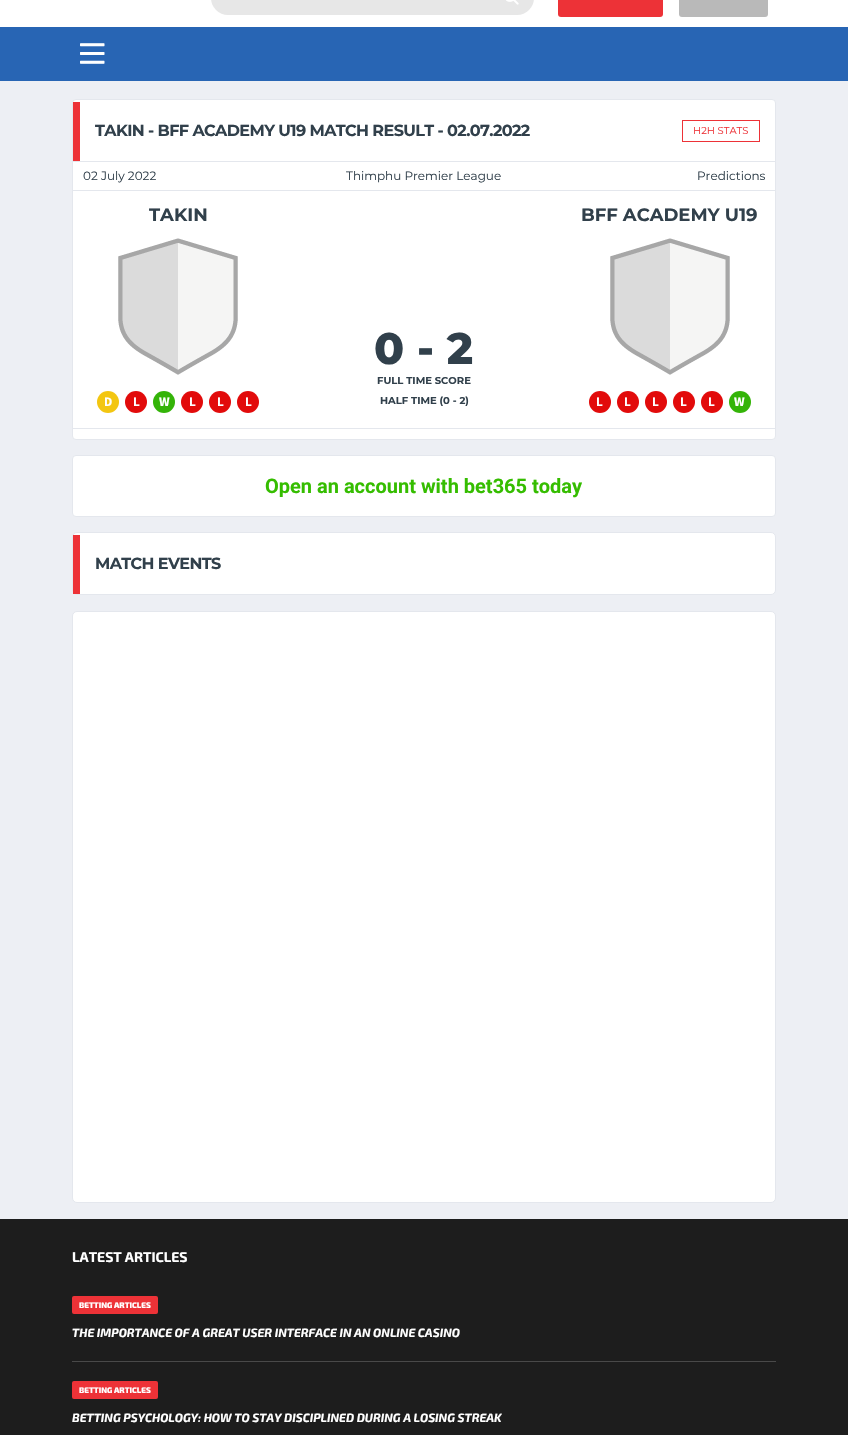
void draw(SkCanvas* canvas) {
  SkPaint paint;
  paint.setAntiAlias(true);
  auto face = [&](const char* family, int weight, float size, bool italic = false) {
    SkFontStyle style(weight, SkFontStyle::kNormal_Width,
      italic ? SkFontStyle::kItalic_Slant : SkFontStyle::kUpright_Slant);
    SkFont result(fontMgr->matchFamilyStyle(family, style), size);
    result.setSubpixel(true);
    return result;
  };
  auto writeSpaced = [&](const char* s, float x, float y, const SkFont& font, const SkPaint& ink, float letter, float word) {
    std::vector<SkGlyphID> glyphs(font.countText(s, strlen(s), SkTextEncoding::kUTF8));
    std::vector<float> xs(glyphs.size());
    font.textToGlyphs(s, strlen(s), SkTextEncoding::kUTF8, glyphs);
    font.getXPos(glyphs, xs, x);
    float extra = 0;
    for (size_t i = 0; i < glyphs.size(); i++) {
      xs[i] += extra;
      extra += letter + word * (glyphs[i] == font.unicharToGlyph(' '));
    }
    canvas->drawTextBlob(SkTextBlob::MakeFromPosHGlyphs(glyphs, xs, y, font), 0, 0, ink);
  };
  auto paste = [&](const char* path, float x, float y, float w, float h) {
    auto image = SkImages::DeferredFromEncodedData(SkData::MakeFromFileName(path));
    canvas->drawImageRect(image, SkRect::MakeXYWH(x, y, w, h), SkSamplingOptions());
  };
  canvas->clear(0xffedeff4);
  paint.setColor(0xffffffff);
  canvas->drawRect(SkRect::MakeXYWH(0, 0, 848, 27), paint);
  paint.setColor(0xffe7e7e7);
  canvas->drawRoundRect(SkRect::MakeXYWH(211, -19, 323, 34), 18.5f, 18.5f, paint);
  paste("img/1.png", 506, 0, 13, 5);
  paint.setColor(0xffed3237);
  canvas->drawRoundRect(SkRect::MakeXYWH(558, -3, 105, 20), 3, 3, paint);
  paint.setColor(0xffb9b9b9);
  canvas->drawRoundRect(SkRect::MakeXYWH(679, -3, 89, 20), 3, 3, paint);
  paint.setColor(0xff2865b4);
  canvas->drawRect(SkRect::MakeXYWH(0, 27, 848, 54), paint);
  paste("img/2.png", 80, 43, 25, 21);
  paint.setColor(0xffffffff);
  canvas->drawRoundRect(SkRect::MakeXYWH(72.5f, 99.5f, 703, 340), 3.5f, 3.5f, paint);
  paint.setStroke(true);
  paint.setStrokeWidth(1);
  paint.setColor(0xffe4e7ed);
  canvas->drawRoundRect(SkRect::MakeXYWH(72.5f, 99.5f, 703, 340), 3.5f, 3.5f, paint);
  paint.setStroke(false);
  paint.setColor(0xffed3237);
  canvas->drawRect(SkRect::MakeXYWH(73, 102, 7, 59), paint);
  paint.setStroke(true);
  canvas->drawRect(SkRect::MakeXYWH(682.5f, 120.5f, 77, 21), paint);
  paint.setStroke(false);
  paint.setColor(0xffe4e7ed);
  canvas->drawRect(SkRect::MakeXYWH(73, 161, 702, 1), paint);
  canvas->drawRect(SkRect::MakeXYWH(73, 190, 702, 1), paint);
  paste("img/3.png", 118, 238, 120, 137);
  paint.setColor(0xfff3c611);
  canvas->drawCircle(108, 402, 11, paint);
  paint.setColor(0xffe20b0b);
  canvas->drawCircle(136, 402, 11, paint);
  paint.setColor(0xff34b408);
  canvas->drawCircle(164, 402, 11, paint);
  paint.setColor(0xffe20b0b);
  canvas->drawCircle(192, 402, 11, paint);
  canvas->drawCircle(220, 402, 11, paint);
  canvas->drawCircle(248, 402, 11, paint);
  paste("img/3.png", 610, 238, 120, 137);
  canvas->drawCircle(600, 402, 11, paint);
  canvas->drawCircle(628, 402, 11, paint);
  canvas->drawCircle(656, 402, 11, paint);
  canvas->drawCircle(684, 402, 11, paint);
  canvas->drawCircle(712, 402, 11, paint);
  paint.setColor(0xff34b408);
  canvas->drawCircle(740, 402, 11, paint);
  paint.setColor(0xffe4e7ed);
  canvas->drawRect(SkRect::MakeXYWH(73, 428, 702, 1), paint);
  paint.setColor(0xffffffff);
  canvas->drawRoundRect(SkRect::MakeXYWH(72.5f, 455.5f, 703, 61), 3.5f, 3.5f, paint);
  paint.setStroke(true);
  paint.setColor(0xffe4e7ed);
  canvas->drawRoundRect(SkRect::MakeXYWH(72.5f, 455.5f, 703, 61), 3.5f, 3.5f, paint);
  paint.setStroke(false);
  paint.setColor(0xffffffff);
  canvas->drawRoundRect(SkRect::MakeXYWH(72.5f, 532.5f, 703, 62), 4.5f, 4.5f, paint);
  paint.setStroke(true);
  paint.setColor(0xffe4e7ed);
  canvas->drawRoundRect(SkRect::MakeXYWH(72.5f, 532.5f, 703, 62), 4.5f, 4.5f, paint);
  paint.setStroke(false);
  paint.setColor(0xffed3237);
  canvas->drawRect(SkRect::MakeXYWH(73, 535, 7, 59), paint);
  paint.setColor(0xffffffff);
  canvas->drawRoundRect(SkRect::MakeXYWH(72.5f, 611.5f, 703, 591), 4.5f, 4.5f, paint);
  paint.setStroke(true);
  paint.setColor(0xffe4e7ed);
  canvas->drawRoundRect(SkRect::MakeXYWH(72.5f, 611.5f, 703, 591), 4.5f, 4.5f, paint);
  paint.setStroke(false);
  paint.setColor(0xff1d1d1d);
  canvas->drawRect(SkRect::MakeXYWH(0, 1219, 848, 216), paint);
  paint.setColor(0xff494949);
  canvas->drawRect(SkRect::MakeXYWH(72, 1361, 704, 1), paint);
  paint.setColor(0xffed3237);
  canvas->drawRoundRect(SkRect::MakeXYWH(72, 1296, 86, 18), 2, 2, paint);
  canvas->drawRoundRect(SkRect::MakeXYWH(72, 1381, 86, 18), 2, 2, paint);
  auto f0 = face("Montserrat", 700, 16);
  paint.setColor(0xff31404b);
  writeSpaced("TAKIN - BFF ACADEMY U19 MATCH RESULT - 02.07.2022", 95, 136, f0, paint, -0.6f, 0);
  auto f1 = face("Montserrat", 400, 10);
  paint.setColor(0xffed3237);
  canvas->drawString("H2H STATS", 693, 134, f1, paint);
  auto f2 = face("Montserrat", 400, 12);
  paint.setColor(0xff31404b);
  {
    const struct { const char* s; float x, y; } items[] = {
      {"02 July 2022", 83, 180},
      {"Thimphu Premier League", 346, 180},
      {"Predictions", 697, 180},
    };
    for (auto [s, x, y] : items) {
      canvas->drawString(s, x, y, f2, paint);
    }
  }
  auto f3 = face("Montserrat", 700, 18);
  canvas->drawString("TAKIN", 149, 221, f3, paint);
  auto f4 = face("Source Sans Pro", 700, 13);
  paint.setColor(0xffffffff);
  {
    const struct { const char* s; float x, y; } items[] = {
      {"D", 104, 406},
      {"L", 133, 406},
      {"W", 159, 406},
      {"L", 189, 406},
      {"L", 217, 406},
      {"L", 245, 406},
    };
    for (auto [s, x, y] : items) {
      canvas->drawString(s, x, y, f4, paint);
    }
  }
  auto f5 = face("Montserrat", 800, 44);
  paint.setColor(0xff31404b);
  canvas->drawString("0 - 2", 374, 364, f5, paint);
  auto f6 = face("Montserrat", 700, 10);
  canvas->drawString("FULL TIME SCORE", 377, 384, f6, paint);
  canvas->drawString("HALF TIME (0 - 2)", 380, 404, f6, paint);
  canvas->drawString("BFF ACADEMY U19", 581, 221, f3, paint);
  paint.setColor(0xffffffff);
  {
    const struct { const char* s; float x, y; } items[] = {
      {"L", 596, 406},
      {"L", 624, 406},
      {"L", 652, 406},
      {"L", 680, 406},
      {"L", 708, 406},
      {"W", 734, 406},
    };
    for (auto [s, x, y] : items) {
      canvas->drawString(s, x, y, f4, paint);
    }
  }
  auto f7 = face("Roboto", 700, 20);
  paint.setColor(0xff35bd00);
  canvas->drawString("Open an account with bet365 today", 265, 493, f7, paint);
  paint.setColor(0xff31404b);
  writeSpaced("MATCH EVENTS", 95, 569, f0, paint, -0.6f, 0);
  auto f8 = face("Exo 2", 700, 14);
  paint.setColor(0xffffffff);
  canvas->drawString("LATEST ARTICLES", 72, 1262, f8, paint);
  auto f9 = face("Exo 2", 800, 8);
  canvas->drawString("BETTING ARTICLES", 79, 1308, f9, paint);
  auto f10 = face("Exo 2", 700, 12, true);
  canvas->drawString("THE IMPORTANCE OF A GREAT USER INTERFACE IN AN ONLINE CASINO", 72, 1337, f10, paint);
  canvas->drawString("BETTING ARTICLES", 79, 1393, f9, paint);
  canvas->drawString("BETTING PSYCHOLOGY: HOW TO STAY DISCIPLINED DURING A LOSING STREAK", 72, 1422, f10, paint);
}
